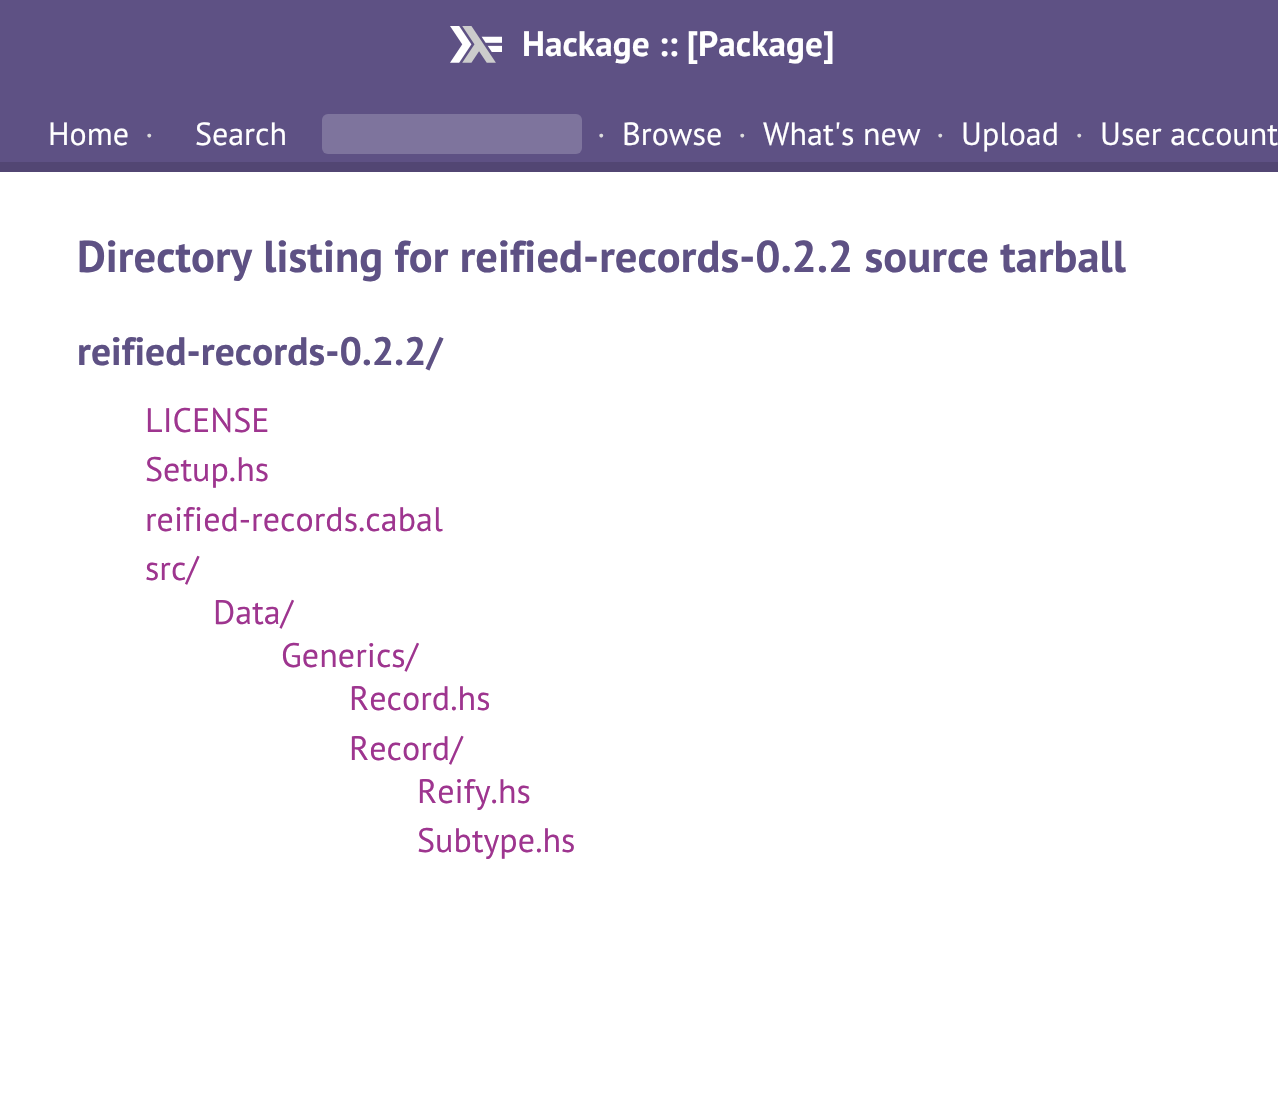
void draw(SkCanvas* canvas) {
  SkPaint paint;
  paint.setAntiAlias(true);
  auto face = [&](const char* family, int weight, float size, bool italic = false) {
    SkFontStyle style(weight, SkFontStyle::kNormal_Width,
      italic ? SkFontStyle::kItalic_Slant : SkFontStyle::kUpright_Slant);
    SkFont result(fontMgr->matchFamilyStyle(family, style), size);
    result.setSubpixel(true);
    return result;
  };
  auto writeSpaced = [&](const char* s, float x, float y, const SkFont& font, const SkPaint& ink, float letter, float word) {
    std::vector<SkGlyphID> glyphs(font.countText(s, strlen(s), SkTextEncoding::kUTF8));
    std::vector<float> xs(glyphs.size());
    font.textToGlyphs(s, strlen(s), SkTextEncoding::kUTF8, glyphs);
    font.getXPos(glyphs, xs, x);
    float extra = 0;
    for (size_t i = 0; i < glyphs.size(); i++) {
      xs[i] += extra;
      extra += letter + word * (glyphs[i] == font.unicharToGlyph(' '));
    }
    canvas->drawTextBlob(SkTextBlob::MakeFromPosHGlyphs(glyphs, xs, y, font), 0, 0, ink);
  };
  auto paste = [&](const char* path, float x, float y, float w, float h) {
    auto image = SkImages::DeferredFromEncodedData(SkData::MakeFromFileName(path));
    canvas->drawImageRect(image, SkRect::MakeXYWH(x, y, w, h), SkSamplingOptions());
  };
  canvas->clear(0xffffffff);
  paint.setColor(0xff5e5184);
  canvas->drawRect(SkRect::MakeXYWH(0, 0, 1278, 162), paint);
  paint.setColor(0xff524673);
  canvas->drawRect(SkRect::MakeXYWH(0, 162, 1278, 10), paint);
  paste("img/1.png", 450, 26, 52, 37);
  paint.setColor(0xff7e749d);
  canvas->drawRoundRect(SkRect::MakeXYWH(322, 114, 260, 40), 6, 6, paint);
  auto f0 = face("PT Sans", 700, 35.25f);
  paint.setColor(0xffffffff);
  writeSpaced("Hackage :: [Package]", 522, 56, f0, paint, 0.05f, 0);
  auto f1 = face("PT Sans", 400, 32);
  writeSpaced("Home", 48, 145, f1, paint, 0.05f, 0);
  paint.setColor(0xffdddddd);
  writeSpaced("·", 145, 145, f1, paint, 0.05f, 0);
  paint.setColor(0xffffffff);
  canvas->drawString("Search", 195, 145, f1, paint);
  paint.setColor(0xffdddddd);
  writeSpaced("·", 597, 145, f1, paint, 0.05f, 0);
  paint.setColor(0xffffffff);
  writeSpaced("Browse", 622, 145, f1, paint, 0.05f, 0);
  paint.setColor(0xffdddddd);
  writeSpaced("·", 738, 145, f1, paint, 0.05f, 0);
  paint.setColor(0xffffffff);
  writeSpaced("What's new", 763, 145, f1, paint, 0.05f, 0);
  paint.setColor(0xffdddddd);
  writeSpaced("·", 936, 145, f1, paint, 0.05f, 0);
  paint.setColor(0xffffffff);
  writeSpaced("Upload", 961, 145, f1, paint, 0.05f, 0);
  paint.setColor(0xffdddddd);
  writeSpaced("·", 1075, 145, f1, paint, 0.05f, 0);
  paint.setColor(0xffffffff);
  writeSpaced("User account", 1100, 145, f1, paint, 0.05f, 0);
  auto f2 = face("PT Sans", 700, 44.5f);
  paint.setColor(0xff5e5184);
  writeSpaced("Directory listing for reified-records-0.2.2 source tarball", 77, 272, f2, paint, 0.05f, 0);
  auto f3 = face("PT Sans", 700, 39.5f);
  writeSpaced("reified-records-0.2.2/", 77, 365, f3, paint, 0.05f, 0);
  auto f4 = face("PT Sans", 400, 34);
  paint.setColor(0xff9e358f);
  {
    const struct { const char* s; float x, y; } items[] = {
      {"LICENSE", 145, 432},
      {"Setup.hs", 145, 481},
      {"reified-records.cabal", 145, 531},
      {"src/", 145, 580},
      {"Data/", 213, 624},
      {"Generics/", 281, 667},
      {"Record.hs", 349, 710},
      {"Record/", 349, 760},
      {"Reify.hs", 417, 803},
      {"Subtype.hs", 417, 852},
    };
    for (auto [s, x, y] : items) {
      writeSpaced(s, x, y, f4, paint, 0.05f, 0);
    }
  }
}
